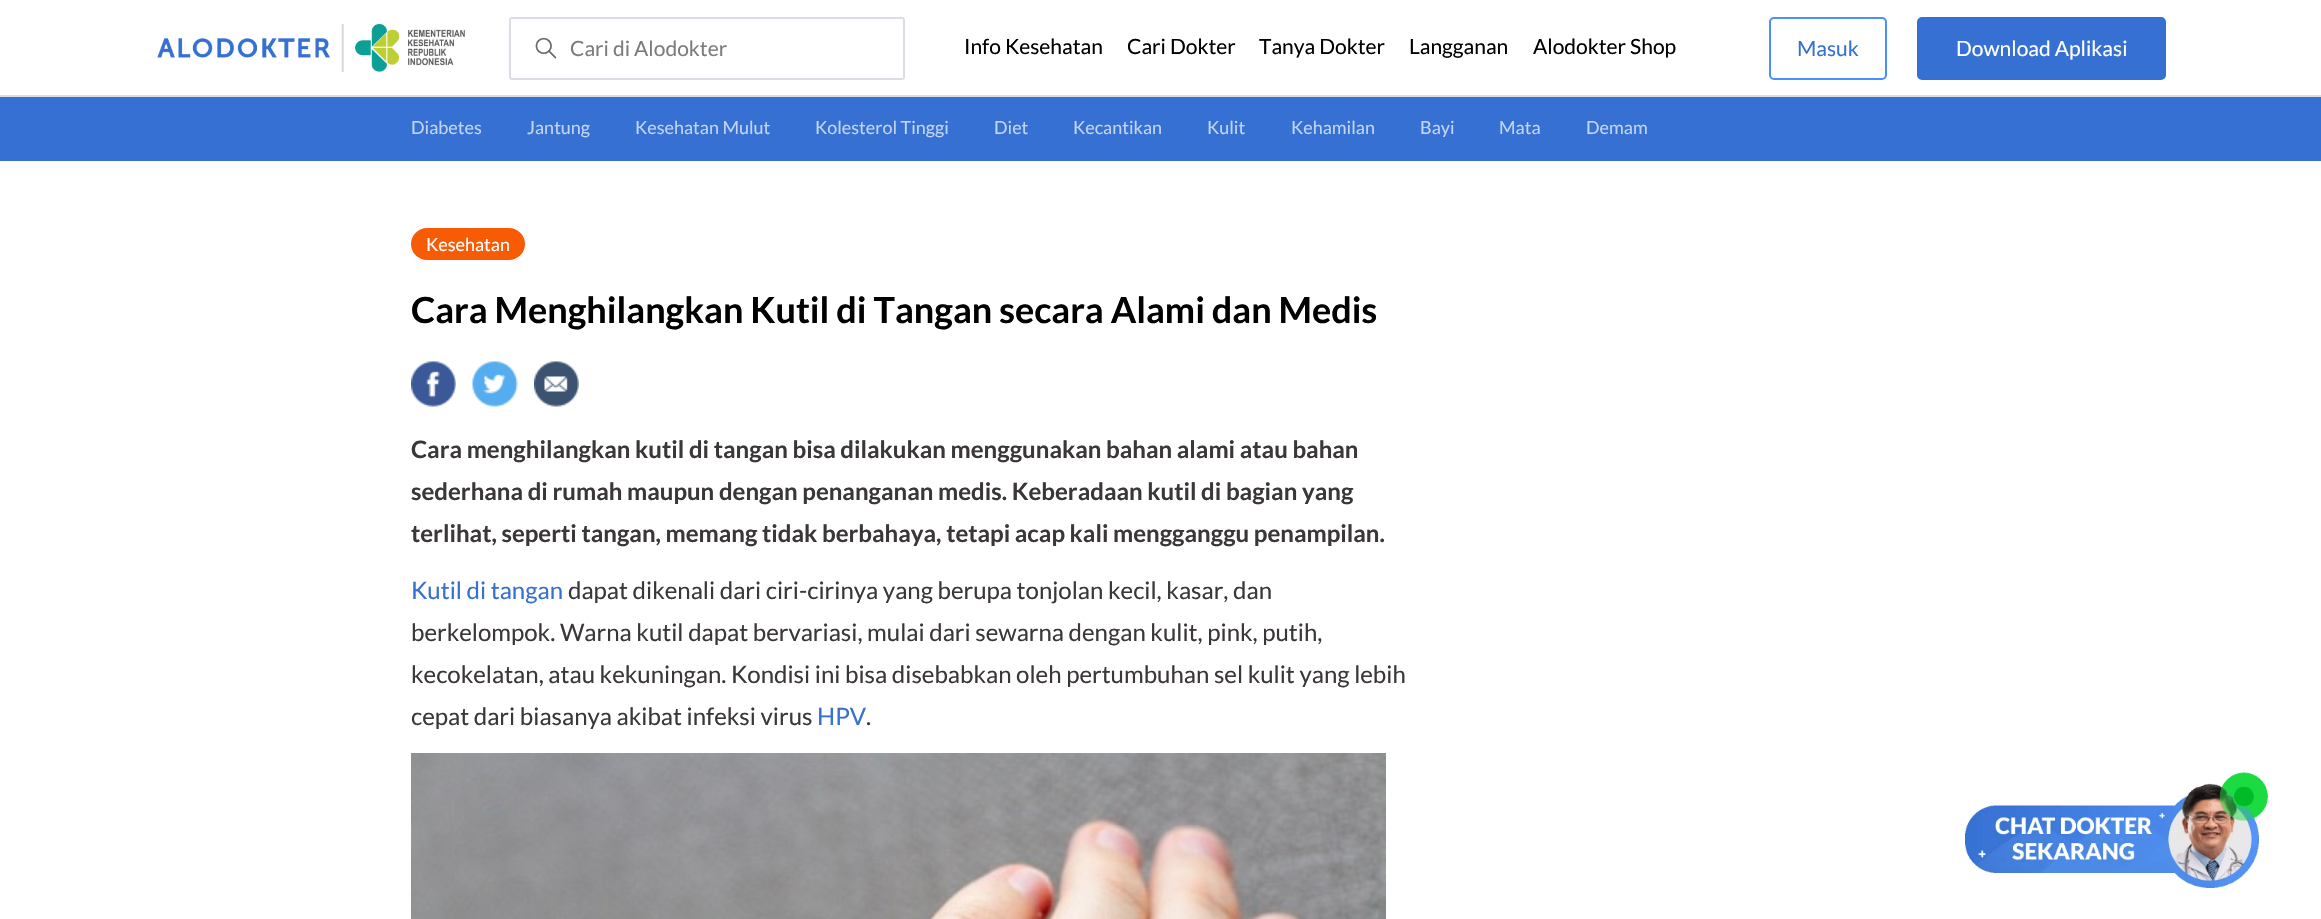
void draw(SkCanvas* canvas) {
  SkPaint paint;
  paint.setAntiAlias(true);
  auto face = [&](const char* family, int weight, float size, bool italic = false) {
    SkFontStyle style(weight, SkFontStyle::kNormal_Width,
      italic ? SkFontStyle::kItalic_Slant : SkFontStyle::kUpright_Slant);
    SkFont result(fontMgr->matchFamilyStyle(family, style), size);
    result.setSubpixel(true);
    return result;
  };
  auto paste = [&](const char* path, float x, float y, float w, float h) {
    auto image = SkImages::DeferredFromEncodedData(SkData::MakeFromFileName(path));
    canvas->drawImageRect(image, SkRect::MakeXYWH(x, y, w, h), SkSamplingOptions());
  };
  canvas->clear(0xffffffff);
  paint.setColor(0xffdadee4);
  canvas->drawRect(SkRect::MakeXYWH(0, 95, 2321, 2), paint);
  paste("img/1.png", 157, 24, 308, 48);
  paste("img/2.png", 535, 37, 22, 22);
  paint.setStroke(true);
  paint.setStrokeWidth(2);
  canvas->drawRoundRect(SkRect::MakeXYWH(510, 18, 394, 61), 2, 2, paint);
  paint.setColor(0xff498fff);
  canvas->drawRoundRect(SkRect::MakeXYWH(1770, 18, 116, 61), 4, 4, paint);
  paint.setStroke(false);
  paint.setColor(0xff3570d2);
  canvas->drawRoundRect(SkRect::MakeXYWH(1918, 18, 247, 61), 4, 4, paint);
  paint.setStroke(true);
  canvas->drawRoundRect(SkRect::MakeXYWH(1918, 18, 247, 61), 4, 4, paint);
  paint.setStroke(false);
  canvas->drawRect(SkRect::MakeXYWH(0, 97, 2321, 64), paint);
  paint.setColor(0xfff85b06);
  canvas->drawRoundRect(SkRect::MakeXYWH(411, 228, 114, 32), 16, 16, paint);
  paste("img/3.png", 411, 361, 45, 46);
  paste("img/4.png", 472, 361, 46, 46);
  paste("img/5.png", 534, 361, 45, 46);
  paste("img/6.png", 411, 753, 975, 166);
  paste("img/7.png", 1965, 772, 303, 116);
  auto f0 = face("Lato", 400, 21);
  paint.setColor(0xff7c7c7c);
  canvas->drawString("Cari di Alodokter", 570, 56, f0, paint);
  paint.setColor(0xff000000);
  {
    const struct { const char* s; float x, y; } items[] = {
      {"Info Kesehatan", 964, 54},
      {"Cari Dokter", 1127, 54},
      {"Tanya Dokter", 1259, 54},
      {"Langganan", 1409, 54},
      {"Alodokter Shop", 1533, 54},
    };
    for (auto [s, x, y] : items) {
      canvas->drawString(s, x, y, f0, paint);
    }
  }
  paint.setColor(0xff3570d2);
  canvas->drawString("Masuk", 1797, 56, f0, paint);
  paint.setColor(0xffffffff);
  canvas->drawString("Download Aplikasi", 1956, 56, f0, paint);
  auto f1 = face("Lato", 400, 18);
  paint.setColor(0xffc2d4f2);
  {
    const struct { const char* s; float x, y; } items[] = {
      {"Diabetes", 411, 134},
      {"Jantung", 527, 134},
      {"Kesehatan Mulut", 635, 134},
      {"Kolesterol Tinggi", 815, 134},
      {"Diet", 994, 134},
      {"Kecantikan", 1073, 134},
      {"Kulit", 1207, 134},
      {"Kehamilan", 1291, 134},
      {"Bayi", 1420, 134},
      {"Mata", 1499, 134},
      {"Demam", 1586, 134},
    };
    for (auto [s, x, y] : items) {
      canvas->drawString(s, x, y, f1, paint);
    }
  }
  paint.setColor(0xffffffff);
  canvas->drawString("Kesehatan", 426, 251, f1, paint);
  auto f2 = face("Lato", 700, 36);
  paint.setColor(0xff000000);
  canvas->drawString("Cara Menghilangkan Kutil di Tangan secara Alami dan Medis", 411, 323, f2, paint);
  auto f3 = face("Lato", 700, 24);
  paint.setColor(0xff3b3738);
  {
    const struct { const char* s; float x, y; } items[] = {
      {"Cara menghilangkan kutil di tangan bisa dilakukan menggunakan bahan alami atau bahan", 411, 458},
      {"sederhana di rumah maupun dengan penanganan medis. Keberadaan kutil di bagian yang", 411, 500},
      {"terlihat, seperti tangan, memang tidak berbahaya, tetapi acap kali mengganggu penampilan.", 411, 542},
    };
    for (auto [s, x, y] : items) {
      canvas->drawString(s, x, y, f3, paint);
    }
  }
  auto f4 = face("Lato", 400, 24);
  paint.setColor(0xff3570d2);
  canvas->drawString("Kutil di tangan", 411, 599, f4, paint);
  paint.setColor(0xff3b3738);
  {
    const struct { const char* s; float x, y; } items[] = {
      {"dapat dikenali dari ciri-cirinya yang berupa tonjolan kecil, kasar, dan", 568, 599},
      {"berkelompok. Warna kutil dapat bervariasi, mulai dari sewarna dengan kulit, pink, putih,", 411, 641},
      {"kecokelatan, atau kekuningan. Kondisi ini bisa disebabkan oleh pertumbuhan sel kulit yang lebih", 411, 683},
      {"cepat dari biasanya akibat infeksi virus", 411, 725},
    };
    for (auto [s, x, y] : items) {
      canvas->drawString(s, x, y, f4, paint);
    }
  }
  paint.setColor(0xff3570d2);
  canvas->drawString("HPV", 817, 725, f4, paint);
  paint.setColor(0xff3b3738);
  canvas->drawString(".", 866, 725, f4, paint);
}
